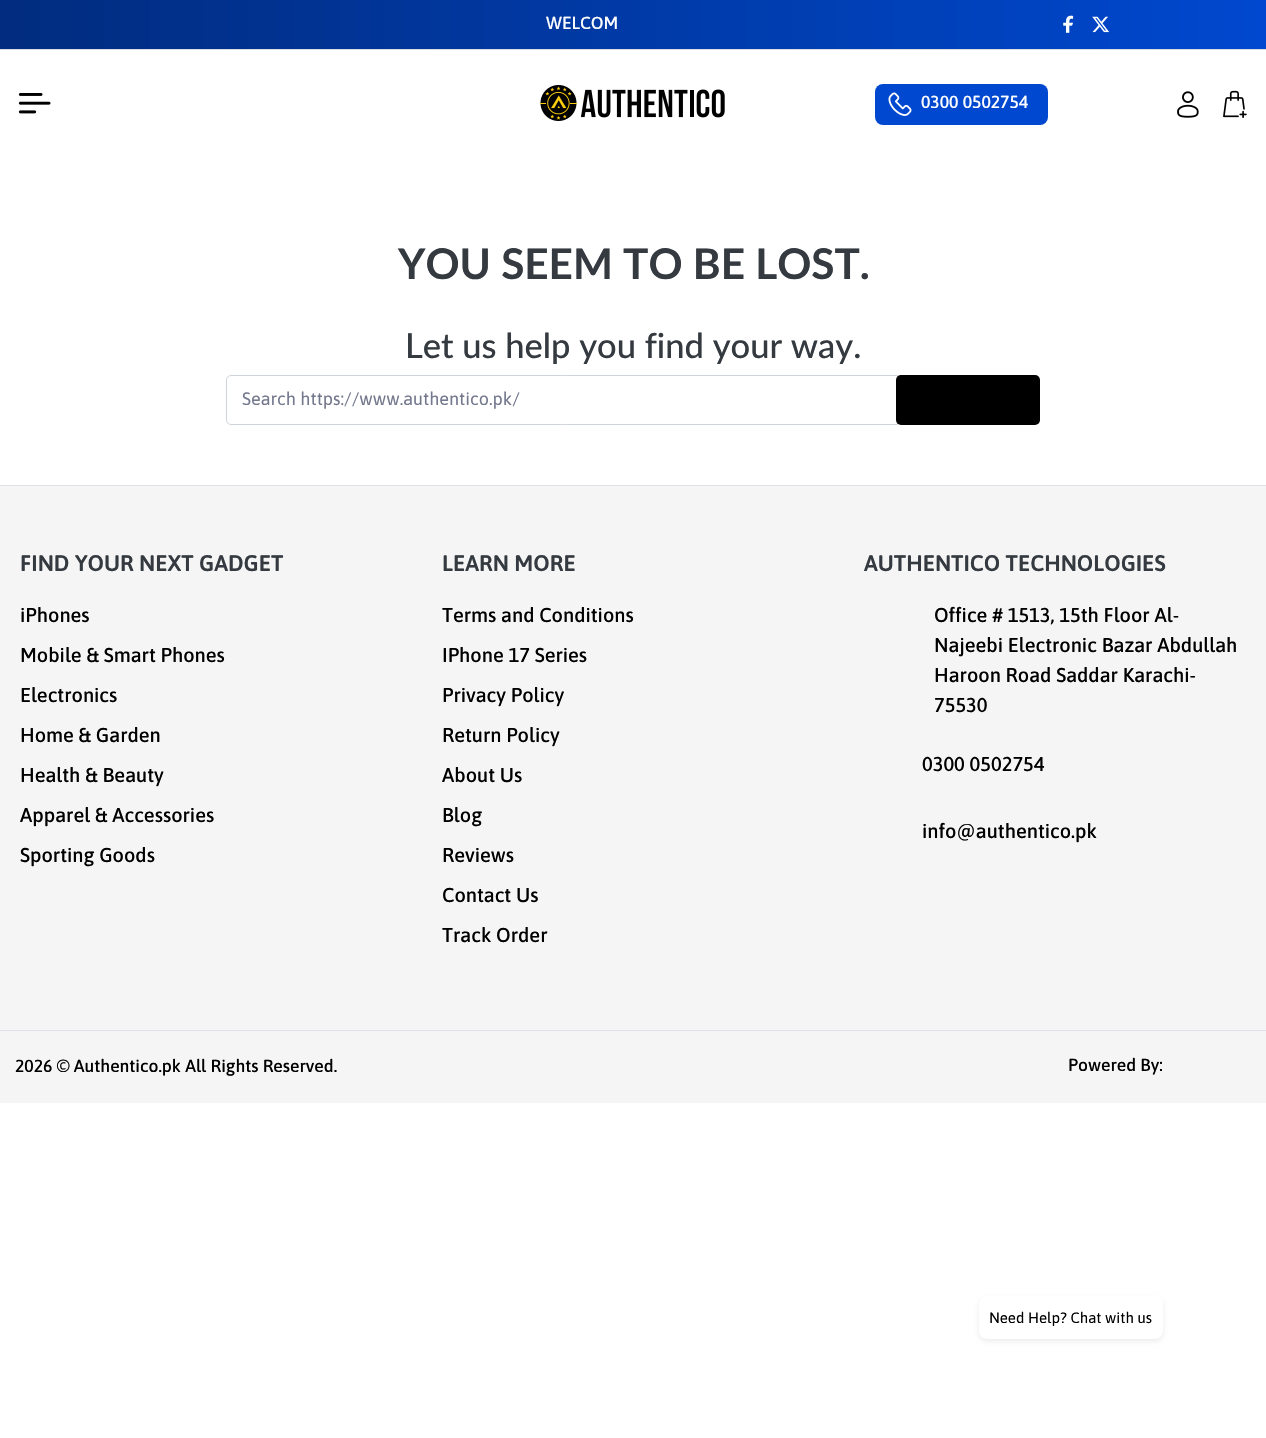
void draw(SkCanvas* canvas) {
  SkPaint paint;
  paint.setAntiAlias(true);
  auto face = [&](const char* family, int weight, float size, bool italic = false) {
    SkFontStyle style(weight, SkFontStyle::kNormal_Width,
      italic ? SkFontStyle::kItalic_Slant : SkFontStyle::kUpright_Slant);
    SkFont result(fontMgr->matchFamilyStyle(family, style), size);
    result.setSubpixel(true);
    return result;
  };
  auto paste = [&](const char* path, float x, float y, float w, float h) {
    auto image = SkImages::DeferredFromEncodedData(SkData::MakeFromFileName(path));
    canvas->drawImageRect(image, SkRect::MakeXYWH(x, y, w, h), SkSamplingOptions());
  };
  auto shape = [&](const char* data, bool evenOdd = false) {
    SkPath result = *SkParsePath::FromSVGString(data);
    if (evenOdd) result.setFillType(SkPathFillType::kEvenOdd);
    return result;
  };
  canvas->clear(0xffffffff);
  {
    const SkColor colors[] = {0xff0048cf, 0xff012c7f};
    const float stops[] = {0, 1};
    const SkPoint ends[] = {{1266, 24}, {0, 24}};
    paint.setShader(SkGradientShader::MakeLinear(ends, colors, stops, 2, SkTileMode::kClamp));
    paint.setAlpha(255);
  }
  canvas->drawRect(SkRect::MakeXYWH(0, 0, 1266, 49), paint);
  paint.setShader(nullptr);
  paint.setColor(0xffdadee3);
  canvas->drawRect(SkRect::MakeXYWH(0, 49, 1266, 1), paint);
  paste("img/1.png", 1063, 15, 11, 18);
  paste("img/2.png", 1092, 16, 17, 17);
  paste("img/3.png", 18, 93, 33, 21);
  paste("img/4.png", 540, 85, 185, 36);
  paint.setColor(0xff0048cf);
  canvas->drawRoundRect(SkRect::MakeXYWH(875, 84, 173, 41), 8, 8, paint);
  paste("img/5.png", 888, 92, 24, 24);
  paste("img/6.png", 1177, 91, 22, 27);
  paste("img/7.png", 1223, 90, 24, 28);
  paint.setStroke(true);
  paint.setStrokeWidth(1);
  paint.setColor(0xffced4da);
  canvas->drawPath(shape("M231 375.5H897.5V424.5H231C228.5 424.5 226.5 422.5 226.5 420V380C226.5 377.5 228.5 375.5 231 375.5Z"), paint);
  paint.setStroke(false);
  paint.setColor(0xff000000);
  canvas->drawRoundRect(SkRect::MakeXYWH(896, 375, 144, 50), 5, 5, paint);
  {
    const struct { float x, y, w, h; SkColor color; } items[] = {
      {0, 486, 1266, 544, 0xfff5f5f5},
      {0, 485, 1266, 1, 0xffdee2e6},
      {0, 1031, 1266, 72, 0xfff5f5f5},
      {0, 1030, 1266, 1, 0xffdee2e6},
    };
    for (auto [x, y, w, h, color] : items) {
      paint.setColor(color);
      canvas->drawRect(SkRect::MakeXYWH(x, y, w, h), paint);
    }
  }
  paint.setColor(0x14000000);
  paint.setMaskFilter(SkMaskFilter::MakeBlur(kNormal_SkBlurStyle, 2.5f));
  canvas->drawRoundRect(SkRect::MakeXYWH(979, 1299, 184, 42), 8, 8, paint);
  paint.setMaskFilter(nullptr);
  paint.setColor(0xffffffff);
  canvas->drawRoundRect(SkRect::MakeXYWH(979, 1296, 184, 43), 8, 8, paint);
  auto f0 = face("Asap", 500, 17.5f);
  canvas->drawString("WELCOM", 546, 29, f0, paint);
  canvas->drawString("0300 0502754", 921, 108, f0, paint);
  auto f1 = face("Lato", 700, 42.25f);
  paint.setColor(0xff343a40);
  canvas->drawString("YOU SEEM TO BE LOST.", 398, 279, f1, paint);
  auto f2 = face("Lato", 500, 34.5f);
  canvas->drawString("Let us help you find your way.", 405, 358, f2, paint);
  auto f3 = face("Asap", 400, 18);
  paint.setColor(0xff74788d);
  canvas->drawString("Search https://www.authentico.pk/", 242, 405, f3, paint);
  auto f4 = face("Asap", 600, 22.5f);
  paint.setColor(0xff343a40);
  canvas->drawString("FIND YOUR NEXT GADGET", 20, 571, f4, paint);
  auto f5 = face("Asap", 500, 20);
  paint.setColor(0xff000000);
  {
    const struct { const char* s; float x, y; } items[] = {
      {"iPhones", 20, 622},
      {"Mobile & Smart Phones", 20, 662},
      {"Electronics", 20, 702},
      {"Home & Garden", 20, 742},
      {"Health & Beauty", 20, 782},
      {"Apparel & Accessories", 20, 822},
      {"Sporting Goods", 20, 862},
    };
    for (auto [s, x, y] : items) {
      canvas->drawString(s, x, y, f5, paint);
    }
  }
  paint.setColor(0xff343a40);
  canvas->drawString("LEARN MORE", 442, 571, f4, paint);
  paint.setColor(0xff000000);
  {
    const struct { const char* s; float x, y; } items[] = {
      {"Terms and Conditions", 442, 622},
      {"IPhone 17 Series", 442, 662},
      {"Privacy Policy", 442, 702},
      {"Return Policy", 442, 742},
      {"About Us", 442, 782},
      {"Blog", 442, 822},
      {"Reviews", 442, 862},
      {"Contact Us", 442, 902},
      {"Track Order", 442, 942},
    };
    for (auto [s, x, y] : items) {
      canvas->drawString(s, x, y, f5, paint);
    }
  }
  paint.setColor(0xff343a40);
  canvas->drawString("AUTHENTICO TECHNOLOGIES", 864, 571, f4, paint);
  paint.setColor(0xff000000);
  {
    const struct { const char* s; float x, y; } items[] = {
      {"Office # 1513, 15th Floor Al-", 934, 622},
      {"Najeebi Electronic Bazar Abdullah", 934, 652},
      {"Haroon Road Saddar Karachi-", 934, 682},
      {"75530", 934, 712},
      {"0300 0502754", 922, 771},
      {"info@authentico.pk", 922, 838},
    };
    for (auto [s, x, y] : items) {
      canvas->drawString(s, x, y, f5, paint);
    }
  }
  canvas->drawString("2026 © Authentico.pk All Rights Reserved.", 15, 1072, f0, paint);
  canvas->drawString("Powered By:", 1068, 1071, f0, paint);
  auto f6 = face("Asap", 400, 15);
  canvas->drawString("Need Help? Chat with us", 989, 1323, f6, paint);
}
